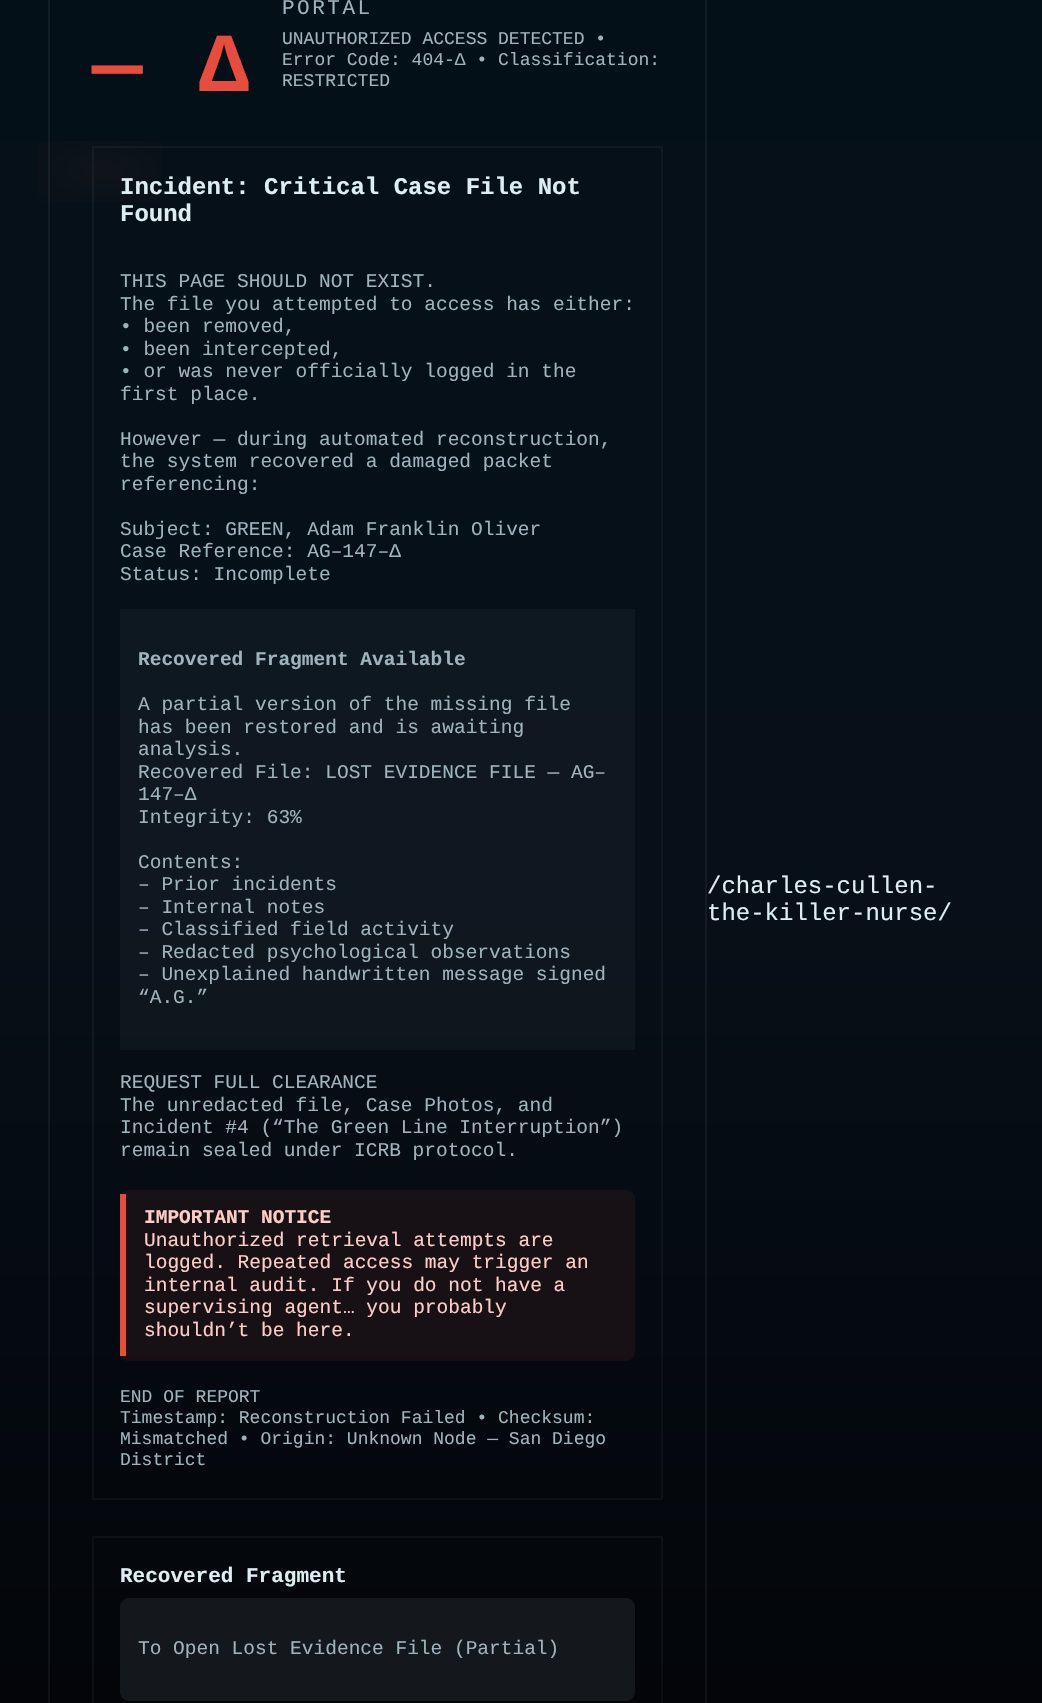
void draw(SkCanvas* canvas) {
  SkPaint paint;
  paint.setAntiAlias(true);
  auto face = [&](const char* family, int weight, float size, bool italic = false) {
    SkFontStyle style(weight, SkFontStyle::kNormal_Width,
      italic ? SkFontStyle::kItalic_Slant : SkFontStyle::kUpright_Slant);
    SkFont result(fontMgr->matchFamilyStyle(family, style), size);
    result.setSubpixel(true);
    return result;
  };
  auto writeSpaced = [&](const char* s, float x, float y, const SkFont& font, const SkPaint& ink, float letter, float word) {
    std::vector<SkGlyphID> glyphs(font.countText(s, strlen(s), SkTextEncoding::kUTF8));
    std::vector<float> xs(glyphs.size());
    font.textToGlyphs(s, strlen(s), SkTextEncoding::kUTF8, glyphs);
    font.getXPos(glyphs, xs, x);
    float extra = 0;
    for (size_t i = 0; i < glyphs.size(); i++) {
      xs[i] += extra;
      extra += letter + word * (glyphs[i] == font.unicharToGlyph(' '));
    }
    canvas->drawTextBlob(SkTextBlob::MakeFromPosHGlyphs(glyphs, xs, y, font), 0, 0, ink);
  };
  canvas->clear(0xffffffff);
  {
    const SkColor colors[] = {0xff041018, 0xff071019, 0xff030509};
    const float stops[] = {0, 0.5f, 1};
    const SkPoint ends[] = {{521, 0}, {521, 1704}};
    paint.setShader(SkGradientShader::MakeLinear(ends, colors, stops, 3, SkTileMode::kClamp));
    paint.setAlpha(255);
  }
  canvas->drawRect(SkRect::MakeXYWH(0, 0, 1042, 1703), paint);
  {
    const SkColor colors[] = {0x0de84c3d, 0x00e84c3d};
    const float stops[] = {0, 0.06f};
    SkMatrix m = SkMatrix::Translate(104, 170).preScale(1800, 900);
    paint.setShader(SkGradientShader::MakeRadial({0, 0}, 1, colors, stops, 2, SkTileMode::kClamp, 0, &m));
    paint.setAlpha(255);
  }
  canvas->drawRect(SkRect::MakeXYWH(37, 141, 124, 61), paint);
  paint.setStroke(true);
  paint.setStrokeWidth(2);
  paint.setShader(nullptr);
  paint.setColor(0x0dffffff);
  canvas->drawRect(SkRect::MakeXYWH(49, -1, 657, 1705), paint);
  paint.setColor(0x0affffff);
  canvas->drawRect(SkRect::MakeXYWH(93, 147, 569, 1352), paint);
  paint.setStroke(false);
  paint.setColor(0x08ffffff);
  canvas->drawRect(SkRect::MakeXYWH(120, 609, 515, 441), paint);
  paint.setColor(0x14e84c3d);
  canvas->drawRoundRect(SkRect::MakeXYWH(120, 1190, 515, 171), 9, 9, paint);
  paint.setColor(0xffe84c3d);
  canvas->drawRect(SkRect::MakeXYWH(120, 1194, 6, 162), paint);
  paint.setStroke(true);
  paint.setColor(0x0affffff);
  canvas->drawRect(SkRect::MakeXYWH(93, 1537, 569, 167), paint);
  paint.setStroke(false);
  paint.setColor(0xff14171b);
  canvas->drawRoundRect(SkRect::MakeXYWH(120, 1598, 515, 103), 9, 9, paint);
  auto f0 = face("Liberation Mono", 700, 84);
  paint.setColor(0xffe84c3d);
  writeSpaced("— Δ", 92, 91, f0, paint, 3, 0);
  auto f1 = face("Liberation Mono", 400, 21);
  paint.setColor(0xff9fb3bd);
  writeSpaced("PORTAL", 282, 14, f1, paint, 2.5f, 0);
  auto f2 = face("Liberation Mono", 400, 18);
  {
    const struct { const char* s; float x, y; } items[] = {
      {"UNAUTHORIZED ACCESS DETECTED •", 282, 44},
      {"Error Code: 404-Δ • Classification:", 282, 65},
      {"RESTRICTED", 282, 86},
    };
    for (auto [s, x, y] : items) {
      canvas->drawString(s, x, y, f2, paint);
    }
  }
  auto f3 = face("Liberation Mono", 700, 24);
  paint.setColor(0xffdceef2);
  canvas->drawString("Incident: Critical Case File Not", 120, 194, f3, paint);
  canvas->drawString("Found", 120, 221, f3, paint);
  auto f4 = face("Liberation Mono", 400, 19.5f);
  paint.setColor(0xff9fb3bd);
  {
    const struct { const char* s; float x, y; } items[] = {
      {"THIS PAGE SHOULD NOT EXIST.", 120, 287},
      {"The file you attempted to access has either:", 120, 310},
      {"• been removed,", 120, 332},
      {"• been intercepted,", 120, 355},
      {"• or was never officially logged in the", 120, 377},
      {"first place.", 120, 400},
      {"However — during automated reconstruction,", 120, 445},
      {"the system recovered a damaged packet", 120, 467},
      {"referencing:", 120, 490},
      {"Subject: GREEN, Adam Franklin Oliver", 120, 535},
      {"Case Reference: AG–147–Δ", 120, 557},
      {"Status: Incomplete", 120, 580},
    };
    for (auto [s, x, y] : items) {
      canvas->drawString(s, x, y, f4, paint);
    }
  }
  auto f5 = face("Liberation Mono", 700, 19.5f);
  canvas->drawString("Recovered Fragment Available", 138, 665, f5, paint);
  {
    const struct { const char* s; float x, y; } items[] = {
      {"A partial version of the missing file", 138, 710},
      {"has been restored and is awaiting", 138, 733},
      {"analysis.", 138, 755},
      {"Recovered File: LOST EVIDENCE FILE — AG–", 138, 778},
      {"147–Δ", 138, 800},
      {"Integrity: 63%", 138, 823},
      {"Contents:", 138, 868},
      {"– Prior incidents", 138, 890},
      {"– Internal notes", 138, 913},
      {"– Classified field activity", 138, 935},
      {"– Redacted psychological observations", 138, 958},
      {"– Unexplained handwritten message signed", 138, 980},
      {"“A.G.”", 138, 1003},
      {"REQUEST FULL CLEARANCE", 120, 1088},
      {"The unredacted file, Case Photos, and", 120, 1111},
      {"Incident #4 (“The Green Line Interruption”)", 120, 1133},
      {"remain sealed under ICRB protocol.", 120, 1156},
    };
    for (auto [s, x, y] : items) {
      canvas->drawString(s, x, y, f4, paint);
    }
  }
  paint.setColor(0xffffcdc7);
  canvas->drawString("IMPORTANT NOTICE", 144, 1223, f5, paint);
  {
    const struct { const char* s; float x, y; } items[] = {
      {"Unauthorized retrieval attempts are", 144, 1246},
      {"logged. Repeated access may trigger an", 144, 1268},
      {"internal audit. If you do not have a", 144, 1291},
      {"supervising agent… you probably", 144, 1313},
      {"shouldn’t be here.", 144, 1336},
    };
    for (auto [s, x, y] : items) {
      canvas->drawString(s, x, y, f4, paint);
    }
  }
  paint.setColor(0xff9fb3bd);
  {
    const struct { const char* s; float x, y; } items[] = {
      {"END OF REPORT", 120, 1402},
      {"Timestamp: Reconstruction Failed • Checksum:", 120, 1423},
      {"Mismatched • Origin: Unknown Node — San Diego", 120, 1444},
      {"District", 120, 1465},
    };
    for (auto [s, x, y] : items) {
      canvas->drawString(s, x, y, f2, paint);
    }
  }
  auto f6 = face("Liberation Mono", 700, 21);
  paint.setColor(0xffdceef2);
  canvas->drawString("Recovered Fragment", 120, 1582, f6, paint);
  paint.setColor(0xff9fb3bd);
  canvas->drawString("To Open Lost Evidence File (Partial)", 138, 1654, f4, paint);
  auto f7 = face("Liberation Mono", 400, 24);
  paint.setColor(0xffdceef2);
  canvas->drawString("/charles-cullen-", 707, 893, f7, paint);
  canvas->drawString("the-killer-nurse/", 707, 920, f7, paint);
}
